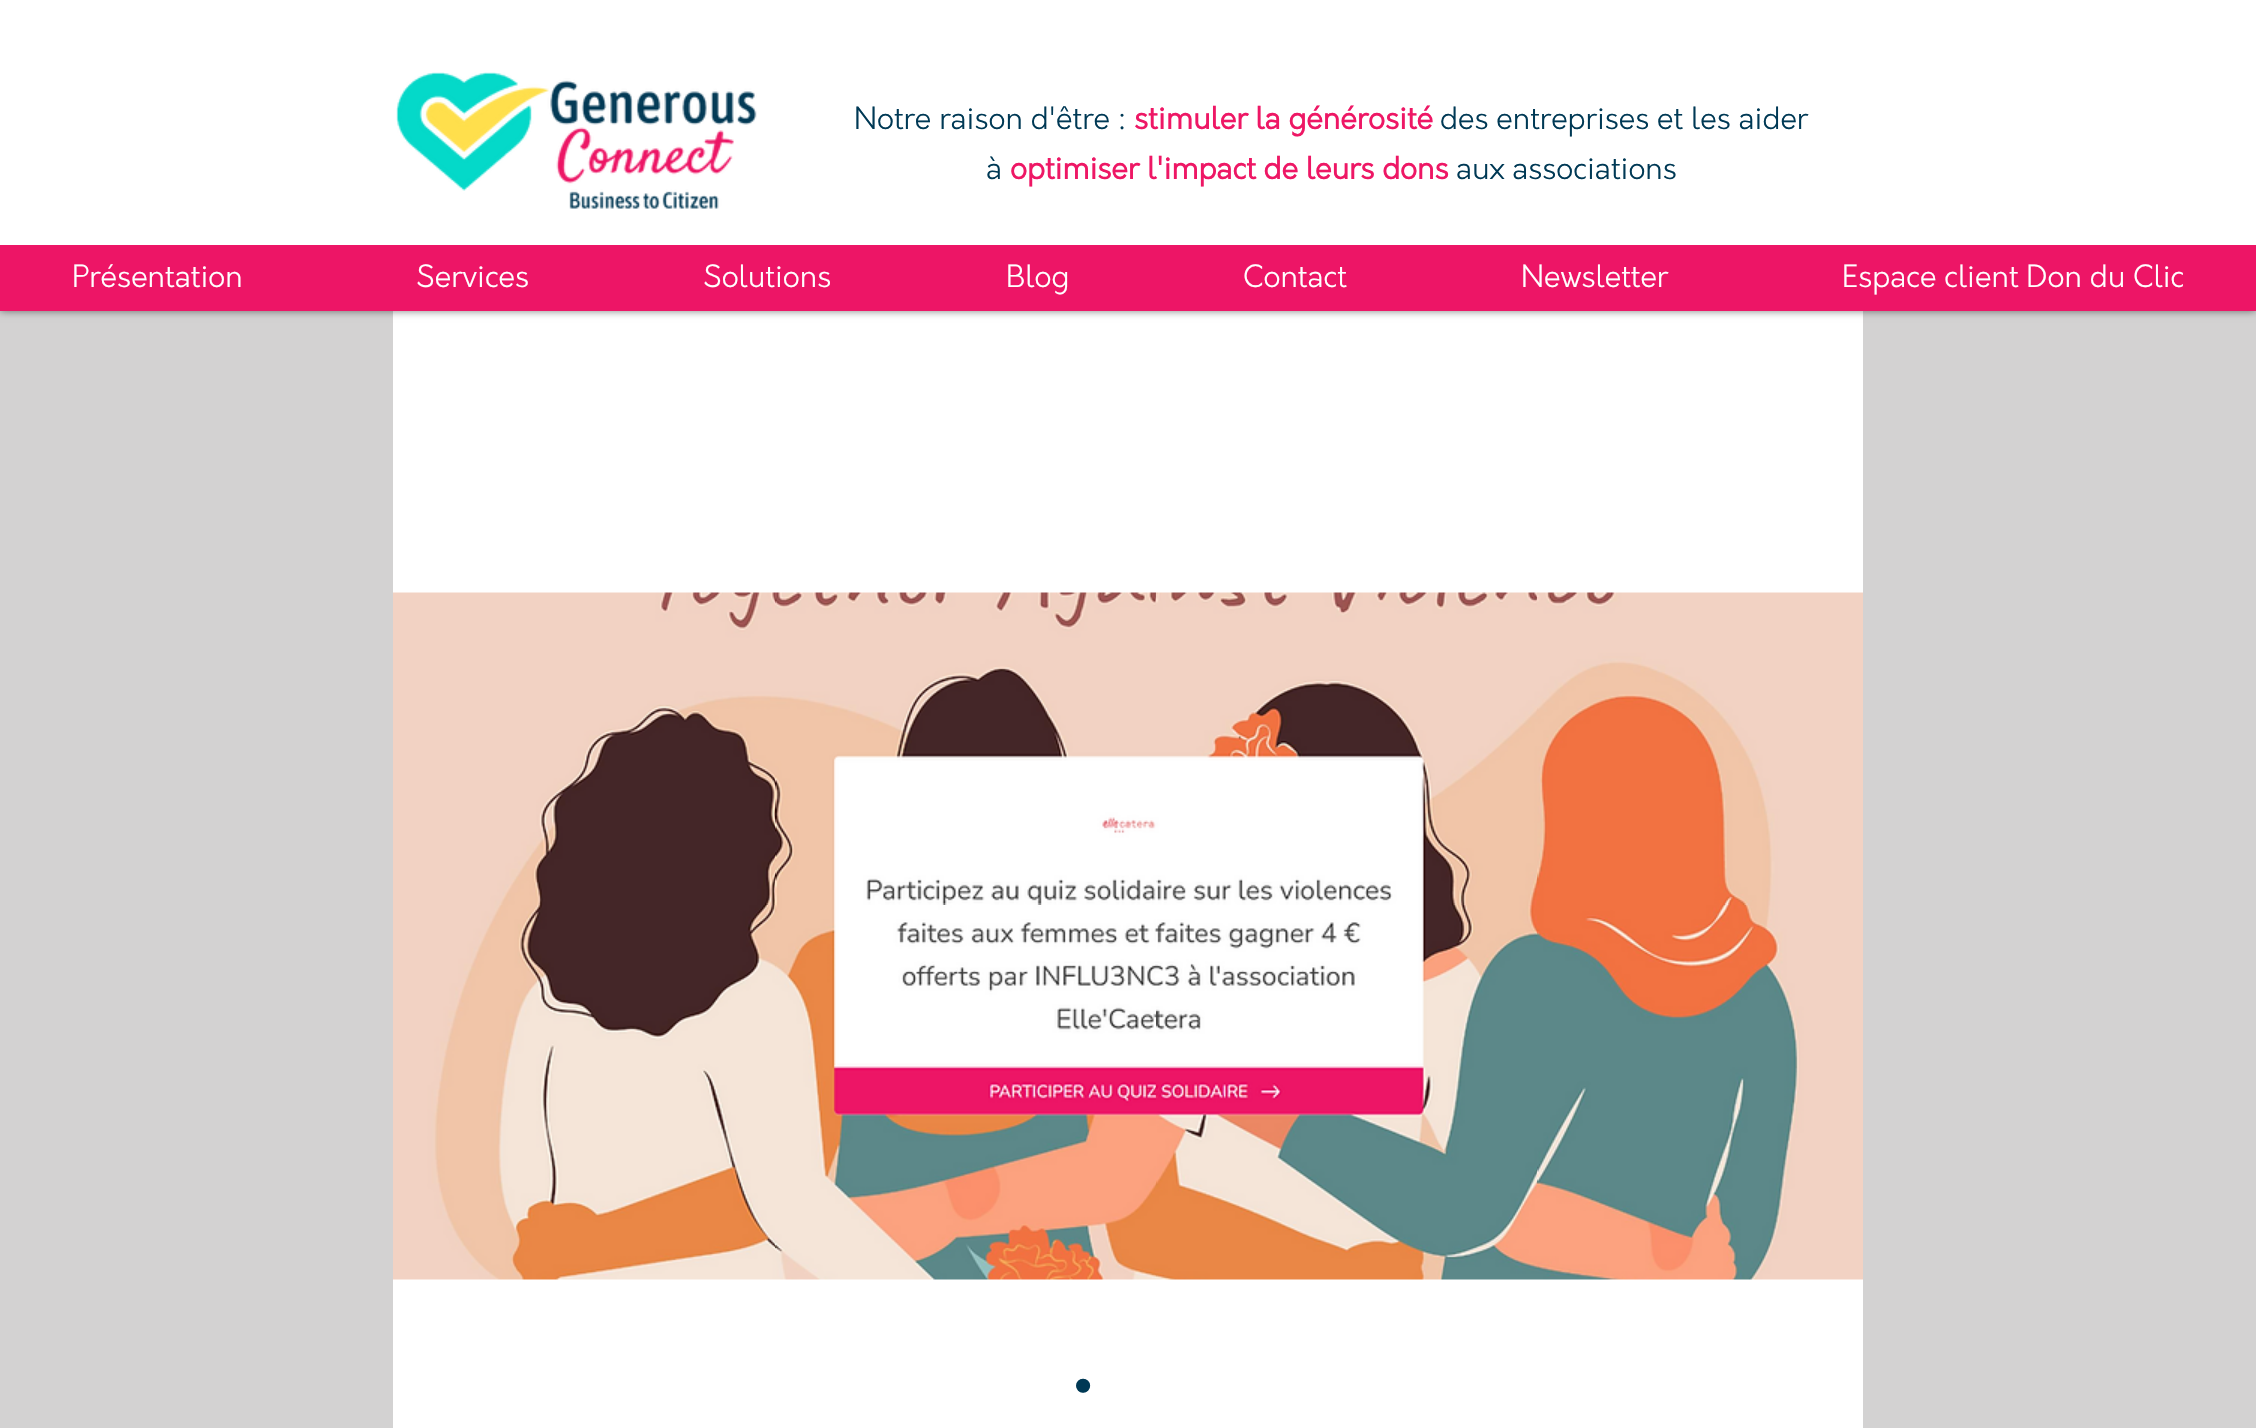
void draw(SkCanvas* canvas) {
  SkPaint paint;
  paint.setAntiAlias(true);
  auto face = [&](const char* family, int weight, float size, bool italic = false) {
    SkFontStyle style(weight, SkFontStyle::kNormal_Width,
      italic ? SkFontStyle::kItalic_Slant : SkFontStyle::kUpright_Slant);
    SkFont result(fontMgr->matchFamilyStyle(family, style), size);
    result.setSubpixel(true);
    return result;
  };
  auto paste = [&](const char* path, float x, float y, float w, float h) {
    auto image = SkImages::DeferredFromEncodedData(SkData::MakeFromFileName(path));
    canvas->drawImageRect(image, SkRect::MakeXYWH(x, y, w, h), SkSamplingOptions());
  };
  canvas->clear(0xffd3d2d2);
  paint.setColor(0xffffffff);
  canvas->drawRect(SkRect::MakeXYWH(393, 311, 1470, 1117), paint);
  paint.setColor(0x80000000);
  paint.setMaskFilter(SkMaskFilter::MakeBlur(kNormal_SkBlurStyle, 4));
  canvas->drawRect(SkRect::MakeXYWH(0, 0, 2256, 311), paint);
  paint.setMaskFilter(nullptr);
  paint.setColor(0xffffffff);
  canvas->drawRect(SkRect::MakeXYWH(0, 0, 2256, 245), paint);
  paste("img/1.png", 396, 72, 361, 137);
  paint.setColor(0xffed1566);
  canvas->drawRect(SkRect::MakeXYWH(0, 245, 2256, 66), paint);
  paste("img/2.png", 393, 592, 1470, 688);
  auto f0 = face("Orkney", 300, 30);
  paint.setColor(0xff003955);
  canvas->drawString("Notre raison d'être :", 854, 129, f0, paint);
  auto f1 = face("Orkney", 700, 30);
  paint.setColor(0xffee1765);
  canvas->drawString("sti", 1134, 129, f1, paint);
  canvas->drawString("muler la générosité", 1166, 129, f1, paint);
  paint.setColor(0xff003955);
  canvas->drawString("des entreprises et les aider", 1440, 129, f0, paint);
  canvas->drawString("à", 986, 179, f0, paint);
  paint.setColor(0xffee1765);
  canvas->drawString("optimiser l'impact de leurs dons", 1010, 179, f1, paint);
  paint.setColor(0xff003955);
  canvas->drawString("aux associations", 1456, 179, f0, paint);
  paint.setColor(0xffffffff);
  {
    const struct { const char* s; float x, y; } items[] = {
      {"Présentation", 72, 287},
      {"Services", 416, 287},
      {"Solutions", 703, 287},
      {"Blog", 1006, 287},
      {"Contact", 1243, 287},
      {"Newsletter", 1521, 287},
      {"Espace client Don du Clic", 1842, 287},
    };
    for (auto [s, x, y] : items) {
      canvas->drawString(s, x, y, f0, paint);
    }
  }
  auto f2 = face("Liberation Sans", 400, 52);
  paint.setColor(0xff003955);
  canvas->drawString("•", 1074, 1403, f2, paint);
}
